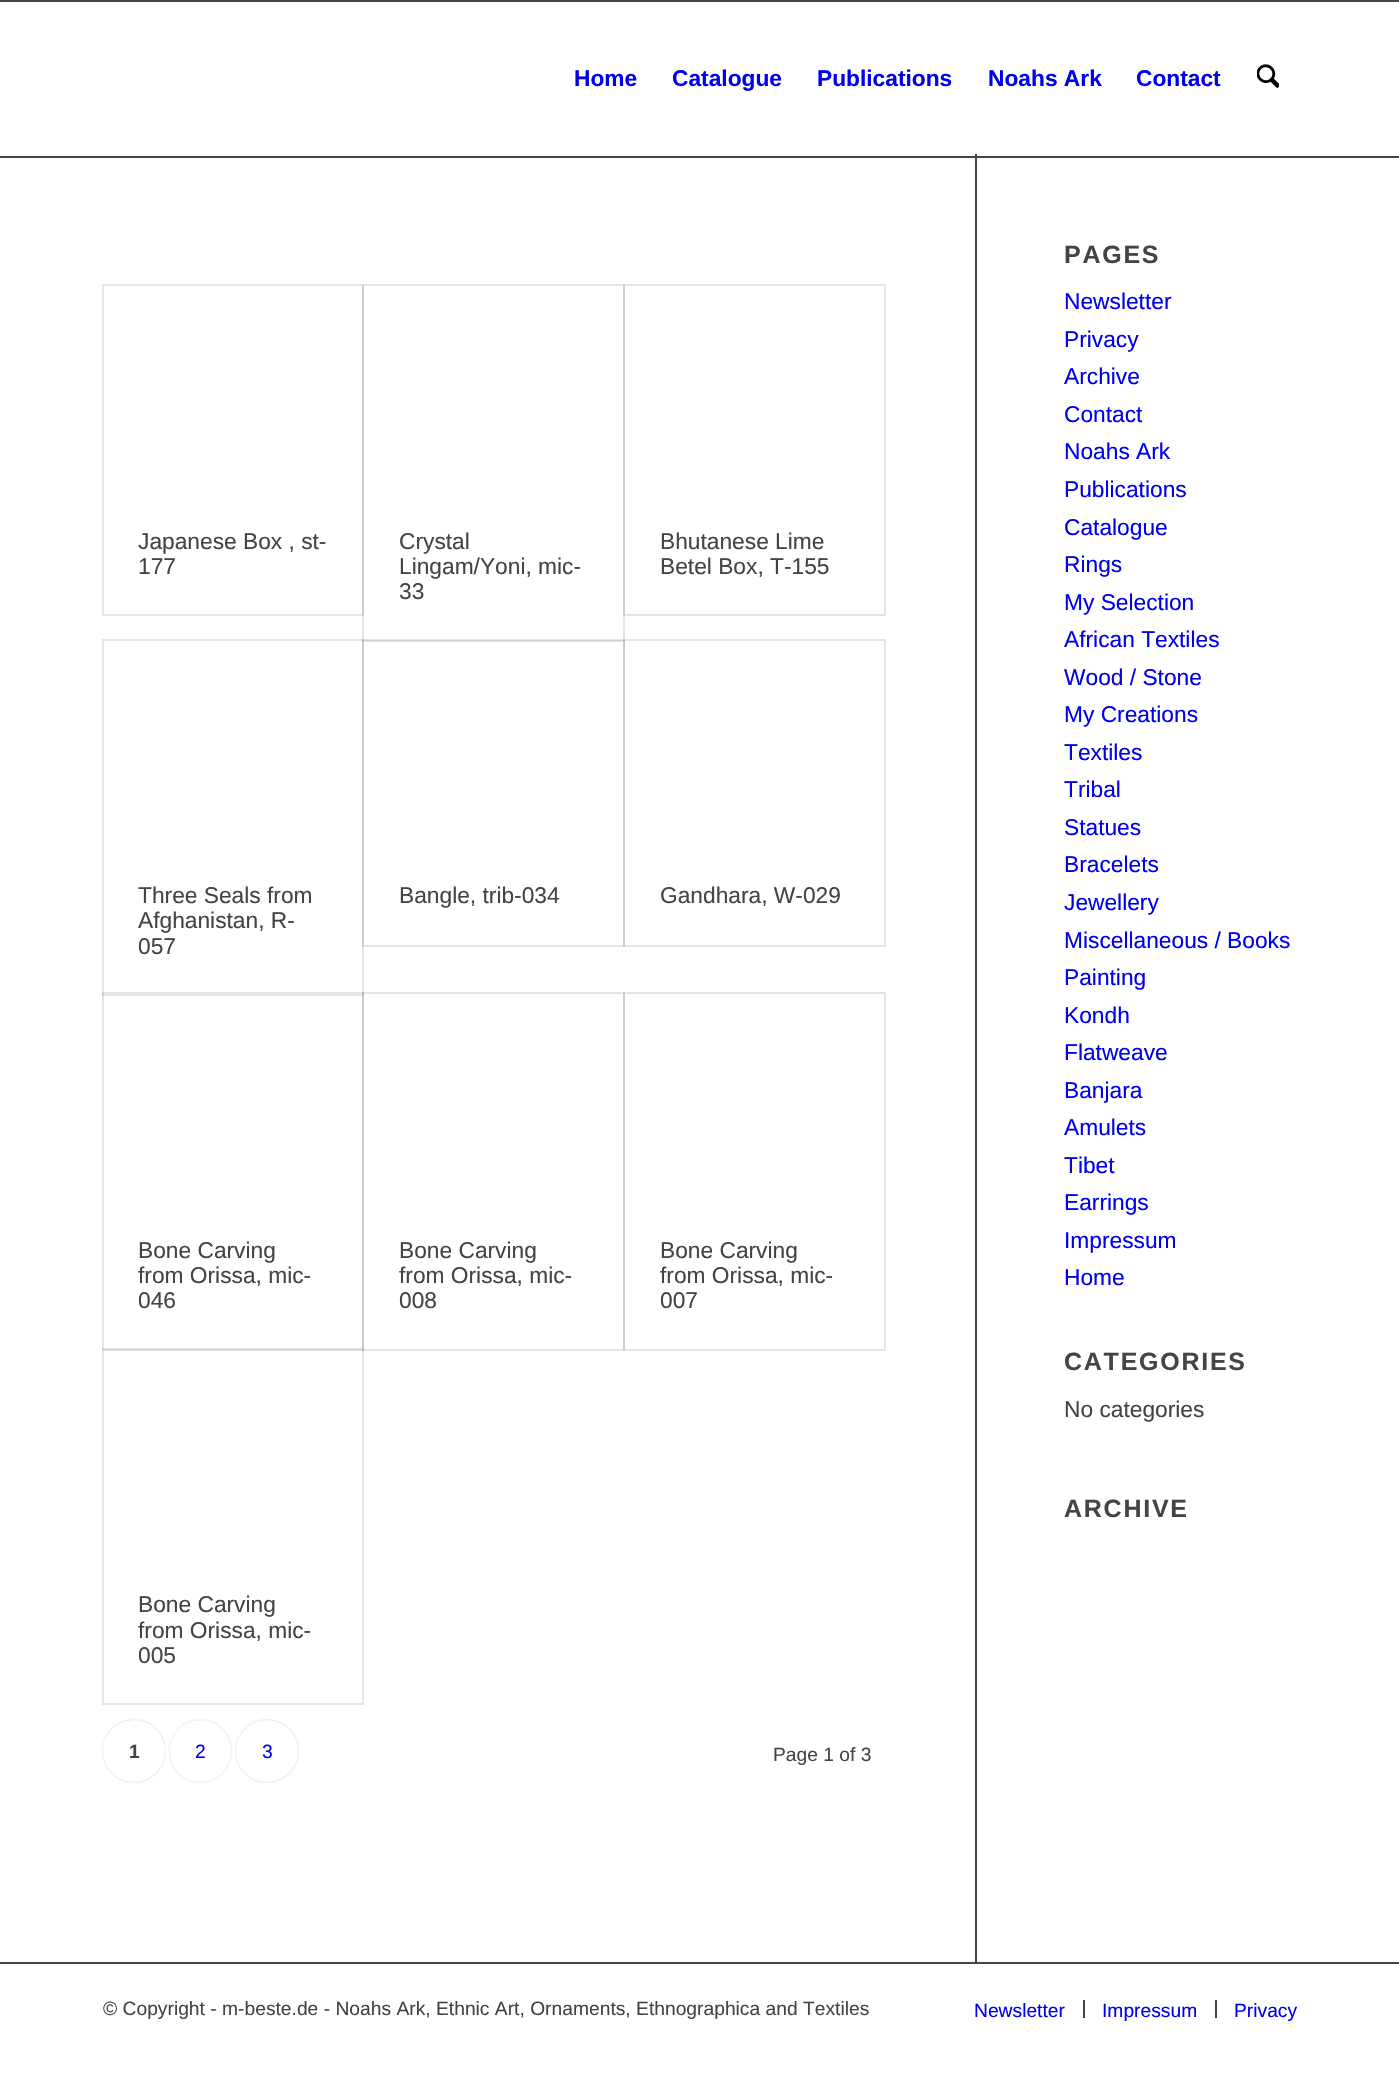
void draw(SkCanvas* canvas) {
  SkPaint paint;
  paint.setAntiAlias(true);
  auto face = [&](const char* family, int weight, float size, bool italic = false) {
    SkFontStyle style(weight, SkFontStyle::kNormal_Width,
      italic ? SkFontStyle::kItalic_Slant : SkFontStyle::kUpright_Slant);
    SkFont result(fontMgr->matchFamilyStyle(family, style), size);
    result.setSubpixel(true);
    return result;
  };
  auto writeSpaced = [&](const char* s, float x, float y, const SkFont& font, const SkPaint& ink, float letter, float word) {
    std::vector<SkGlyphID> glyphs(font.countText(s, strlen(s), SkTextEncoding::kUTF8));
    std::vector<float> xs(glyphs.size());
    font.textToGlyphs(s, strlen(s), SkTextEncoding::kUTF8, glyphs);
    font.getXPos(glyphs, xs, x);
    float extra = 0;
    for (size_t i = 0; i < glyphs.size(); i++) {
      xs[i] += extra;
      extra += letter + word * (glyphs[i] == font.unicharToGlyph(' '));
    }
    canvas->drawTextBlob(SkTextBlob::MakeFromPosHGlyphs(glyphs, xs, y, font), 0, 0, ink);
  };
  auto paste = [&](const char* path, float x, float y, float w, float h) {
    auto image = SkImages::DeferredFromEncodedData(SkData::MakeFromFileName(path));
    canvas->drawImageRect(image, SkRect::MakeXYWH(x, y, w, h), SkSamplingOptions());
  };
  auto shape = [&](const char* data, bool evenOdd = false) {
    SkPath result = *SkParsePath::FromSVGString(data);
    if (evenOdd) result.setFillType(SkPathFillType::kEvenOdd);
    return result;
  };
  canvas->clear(0xffffffff);
  {
    const struct { float x, y, w, h; SkColor color; } items[] = {
      {0, 0, 1399, 2, 0xff444444},
      {975, 154, 2, 1808, 0xff444444},
      {0, 156, 1399, 2, 0xff444444},
    };
    for (auto [x, y, w, h, color] : items) {
      paint.setColor(color);
      canvas->drawRect(SkRect::MakeXYWH(x, y, w, h), paint);
    }
  }
  paste("img/1.png", 1257, 64, 22, 24);
  paint.setStroke(true);
  paint.setStrokeWidth(2);
  paint.setColor(0xffe6e6e6);
  canvas->drawRect(SkRect::MakeXYWH(103, 285, 260, 330), paint);
  paint.setColor(0x1a000000);
  canvas->drawRect(SkRect::MakeXYWH(363, 285, 261, 356), paint);
  canvas->drawRect(SkRect::MakeXYWH(624, 285, 261, 330), paint);
  canvas->drawRect(SkRect::MakeXYWH(103, 640, 260, 355), paint);
  canvas->drawRect(SkRect::MakeXYWH(363, 640, 261, 306), paint);
  canvas->drawRect(SkRect::MakeXYWH(624, 640, 261, 306), paint);
  canvas->drawRect(SkRect::MakeXYWH(103, 993, 260, 357), paint);
  canvas->drawRect(SkRect::MakeXYWH(363, 993, 261, 357), paint);
  canvas->drawRect(SkRect::MakeXYWH(624, 993, 261, 357), paint);
  canvas->drawRect(SkRect::MakeXYWH(103, 1349, 260, 355), paint);
  canvas->save();
  canvas->clipPath(shape("M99 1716H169V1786H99ZM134 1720C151 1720 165 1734 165 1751C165 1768 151 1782 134 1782C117 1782 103 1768 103 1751C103 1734 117 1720 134 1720Z", true), true);
  paint.setStroke(false);
  paint.setColor(0x33000000);
  paint.setMaskFilter(SkMaskFilter::MakeBlur(kNormal_SkBlurStyle, 1));
  canvas->drawRoundRect(SkRect::MakeXYWH(103, 1720, 62, 62), 31, 31, paint);
  paint.setMaskFilter(nullptr);
  canvas->restore();
  canvas->save();
  canvas->clipPath(shape("M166 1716H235V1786H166ZM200.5 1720C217.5 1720 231 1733.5 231 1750.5V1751.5C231 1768.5 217.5 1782 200.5 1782C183.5 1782 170 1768.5 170 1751.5V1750.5C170 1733.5 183.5 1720 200.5 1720Z", true), true);
  paint.setMaskFilter(SkMaskFilter::MakeBlur(kNormal_SkBlurStyle, 1));
  canvas->drawRoundRect(SkRect::MakeXYWH(170, 1720, 61, 62), 30.5f, 30.5f, paint);
  paint.setMaskFilter(nullptr);
  canvas->restore();
  canvas->save();
  canvas->clipPath(shape("M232 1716H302V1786H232ZM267 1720C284 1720 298 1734 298 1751C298 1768 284 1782 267 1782C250 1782 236 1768 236 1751C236 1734 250 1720 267 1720Z", true), true);
  paint.setMaskFilter(SkMaskFilter::MakeBlur(kNormal_SkBlurStyle, 1));
  canvas->drawRoundRect(SkRect::MakeXYWH(236, 1720, 62, 62), 31, 31, paint);
  paint.setMaskFilter(nullptr);
  canvas->restore();
  {
    const struct { float x, y, w, h; SkColor color; } items[] = {
      {0, 1962, 1399, 2, 0xff444444},
      {1083, 2000, 2, 18, 0xff444444},
      {1215, 2000, 2, 18, 0xff444444},
    };
    for (auto [x, y, w, h, color] : items) {
      paint.setColor(color);
      canvas->drawRect(SkRect::MakeXYWH(x, y, w, h), paint);
    }
  }
  auto f0 = face("Liberation Sans", 700, 22.75f);
  paint.setColor(0xff0000ee);
  {
    const struct { const char* s; float x, y; } items[] = {
      {"Home", 574, 86},
      {"Catalogue", 672, 86},
      {"Publications", 817, 86},
      {"Noahs Ark", 988, 86},
      {"Contact", 1136, 86},
    };
    for (auto [s, x, y] : items) {
      canvas->drawString(s, x, y, f0, paint);
    }
  }
  auto f1 = face("Liberation Sans", 400, 22.75f);
  paint.setColor(0xff444444);
  {
    const struct { const char* s; float x, y; } items[] = {
      {"Japanese Box , st-", 138, 549},
      {"177", 138, 574},
      {"Crystal", 399, 549},
      {"Lingam/Yoni, mic-", 399, 574},
      {"33", 399, 599},
      {"Bhutanese Lime", 660, 549},
      {"Betel Box, T-155", 660, 574},
      {"Three Seals from", 138, 903},
      {"Afghanistan, R-", 138, 928},
      {"057", 138, 954},
      {"Bangle, trib-034", 399, 903},
      {"Gandhara, W-029", 660, 903},
      {"Bone Carving", 138, 1258},
      {"from Orissa, mic-", 138, 1283},
      {"046", 138, 1308},
      {"Bone Carving", 399, 1258},
      {"from Orissa, mic-", 399, 1283},
      {"008", 399, 1308},
      {"Bone Carving", 660, 1258},
      {"from Orissa, mic-", 660, 1283},
      {"007", 660, 1308},
      {"Bone Carving", 138, 1612},
      {"from Orissa, mic-", 138, 1638},
      {"005", 138, 1663},
    };
    for (auto [s, x, y] : items) {
      canvas->drawString(s, x, y, f1, paint);
    }
  }
  auto f2 = face("Liberation Sans", 700, 19.25f);
  canvas->drawString("1", 129, 1758, f2, paint);
  auto f3 = face("Liberation Sans", 400, 19.25f);
  paint.setColor(0xff0000ee);
  canvas->drawString("2", 195, 1758, f3, paint);
  canvas->drawString("3", 262, 1758, f3, paint);
  paint.setColor(0xff444444);
  canvas->drawString("Page 1 of 3", 773, 1761, f3, paint);
  auto f4 = face("Liberation Sans", 700, 25);
  writeSpaced("PAGES", 1064, 263, f4, paint, 1.75f, 0);
  paint.setColor(0xff0000ee);
  {
    const struct { const char* s; float x, y; } items[] = {
      {"Newsletter", 1064, 309},
      {"Privacy", 1064, 347},
      {"Archive", 1064, 384},
      {"Contact", 1064, 422},
      {"Noahs Ark", 1064, 459},
      {"Publications", 1064, 497},
      {"Catalogue", 1064, 535},
      {"Rings", 1064, 572},
      {"My Selection", 1064, 610},
      {"African Textiles", 1064, 647},
      {"Wood / Stone", 1064, 685},
      {"My Creations", 1064, 722},
      {"Textiles", 1064, 760},
      {"Tribal", 1064, 797},
      {"Statues", 1064, 835},
      {"Bracelets", 1064, 872},
      {"Jewellery", 1064, 910},
      {"Miscellaneous / Books", 1064, 948},
      {"Painting", 1064, 985},
      {"Kondh", 1064, 1023},
      {"Flatweave", 1064, 1060},
      {"Banjara", 1064, 1098},
      {"Amulets", 1064, 1135},
      {"Tibet", 1064, 1173},
      {"Earrings", 1064, 1210},
      {"Impressum", 1064, 1248},
      {"Home", 1064, 1285},
    };
    for (auto [s, x, y] : items) {
      canvas->drawString(s, x, y, f1, paint);
    }
  }
  paint.setColor(0xff444444);
  writeSpaced("CATEGORIES", 1064, 1370, f4, paint, 1.75f, 0);
  canvas->drawString("No categories", 1064, 1417, f1, paint);
  writeSpaced("ARCHIVE", 1064, 1517, f4, paint, 1.75f, 0);
  canvas->drawString("© Copyright - m-beste.de - Noahs Ark, Ethnic Art, Ornaments, Ethnographica and Textiles", 103, 2015, f3, paint);
  paint.setColor(0xff0000ee);
  {
    const struct { const char* s; float x, y; } items[] = {
      {"Newsletter", 974, 2017},
      {"Impressum", 1102, 2017},
      {"Privacy", 1234, 2017},
    };
    for (auto [s, x, y] : items) {
      canvas->drawString(s, x, y, f3, paint);
    }
  }
}
